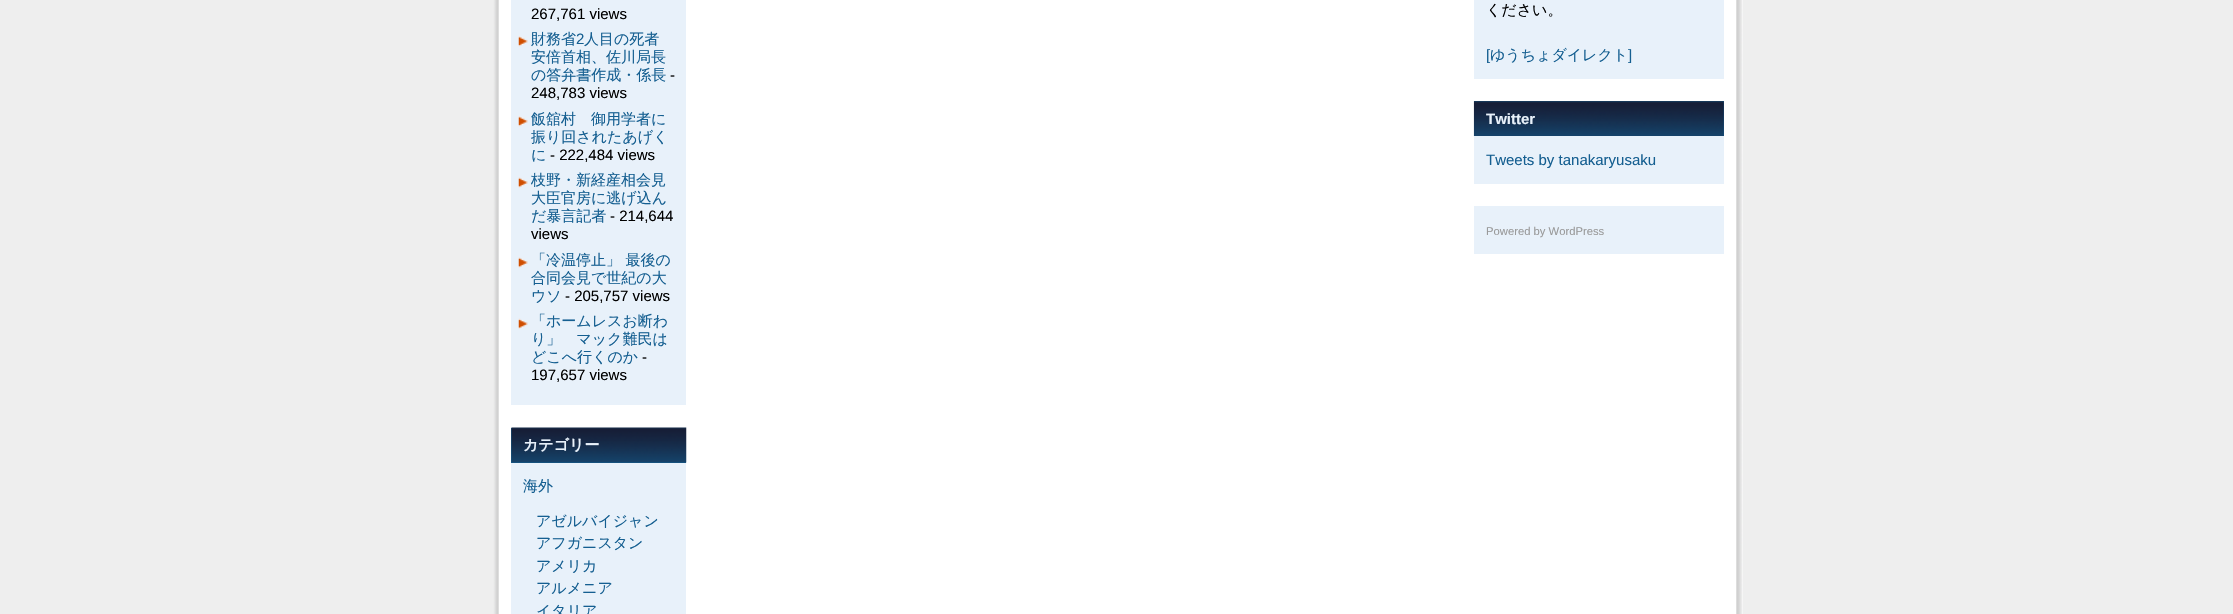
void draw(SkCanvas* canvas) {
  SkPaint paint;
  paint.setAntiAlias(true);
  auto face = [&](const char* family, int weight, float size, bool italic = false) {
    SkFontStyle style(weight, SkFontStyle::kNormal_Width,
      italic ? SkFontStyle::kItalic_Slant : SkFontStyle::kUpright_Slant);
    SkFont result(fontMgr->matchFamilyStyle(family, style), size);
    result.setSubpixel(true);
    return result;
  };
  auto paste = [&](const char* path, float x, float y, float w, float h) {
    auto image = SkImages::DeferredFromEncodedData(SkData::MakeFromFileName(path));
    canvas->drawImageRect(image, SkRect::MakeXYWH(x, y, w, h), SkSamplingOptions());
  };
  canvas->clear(0xffeeeeee);
  paint.setColor(0xffffffff);
  canvas->drawRect(SkRect::MakeXYWH(1742, 0, 1, 614), paint);
  paste("img/1.png", 493, 0, 1250, 614);
  paint.setColor(0xffe8f1fa);
  canvas->drawRect(SkRect::MakeXYWH(511, 0, 175, 405), paint);
  paste("img/2.png", 518, 36, 10, 11);
  paste("img/2.png", 518, 116, 10, 11);
  paste("img/3.png", 518, 177, 10, 11);
  paste("img/3.png", 518, 257, 10, 11);
  paste("img/4.png", 518, 318, 10, 11);
  canvas->drawRect(SkRect::MakeXYWH(511, 463, 175, 151), paint);
  paint.setColor(0xff155f91);
  canvas->drawRect(SkRect::MakeXYWH(511, 428, 175, 35), paint);
  paste("img/5.png", 511, 427, 176, 36);
  paint.setColor(0xffe8f1fa);
  canvas->drawRect(SkRect::MakeXYWH(1474, 0, 250, 79), paint);
  paint.setColor(0xff155f91);
  canvas->drawRect(SkRect::MakeXYWH(1474, 101, 250, 35), paint);
  paste("img/6.png", 1473, 101, 251, 35);
  paint.setColor(0xffe8f1fa);
  canvas->drawRect(SkRect::MakeXYWH(1474, 136, 250, 48), paint);
  canvas->drawRect(SkRect::MakeXYWH(1474, 206, 250, 48), paint);
  auto f0 = face("Liberation Sans", 400, 15);
  paint.setColor(0xff000000);
  canvas->drawString("267,761 views", 531, 19, f0, paint);
  auto f1 = face("WenQuanYi Zen Hei", 500, 15);
  paint.setColor(0xff155f91);
  canvas->drawString("財務省", 531, 44, f1, paint);
  canvas->drawString("2", 576, 44, f0, paint);
  {
    const struct { const char* s; float x, y; } items[] = {
      {"人目の死者", 584, 44},
      {"安倍首相、佐川局長", 531, 62},
      {"の答弁書作成・係長", 531, 80},
    };
    for (auto [s, x, y] : items) {
      canvas->drawString(s, x, y, f1, paint);
    }
  }
  paint.setColor(0xff000000);
  canvas->drawString("-", 670, 80, f0, paint);
  canvas->drawString("248,783 views", 531, 98, f0, paint);
  paint.setColor(0xff155f91);
  {
    const struct { const char* s; float x, y; } items[] = {
      {"飯舘村　御用学者に", 531, 124},
      {"振り回されたあげく", 531, 142},
      {"に", 531, 160},
    };
    for (auto [s, x, y] : items) {
      canvas->drawString(s, x, y, f1, paint);
    }
  }
  paint.setColor(0xff000000);
  canvas->drawString("- 222,484 views", 550, 160, f0, paint);
  paint.setColor(0xff155f91);
  {
    const struct { const char* s; float x, y; } items[] = {
      {"枝野・新経産相会見", 531, 185},
      {"大臣官房に逃げ込ん", 531, 203},
      {"だ暴言記者", 531, 221},
    };
    for (auto [s, x, y] : items) {
      canvas->drawString(s, x, y, f1, paint);
    }
  }
  paint.setColor(0xff000000);
  canvas->drawString("- 214,644", 610, 221, f0, paint);
  canvas->drawString("views", 531, 239, f0, paint);
  paint.setColor(0xff155f91);
  {
    const struct { const char* s; float x, y; } items[] = {
      {"「冷温停止」 最後の", 531, 265},
      {"合同会見で世紀の大", 531, 283},
      {"ウソ", 531, 301},
    };
    for (auto [s, x, y] : items) {
      canvas->drawString(s, x, y, f1, paint);
    }
  }
  paint.setColor(0xff000000);
  canvas->drawString("- 205,757 views", 565, 301, f0, paint);
  paint.setColor(0xff155f91);
  {
    const struct { const char* s; float x, y; } items[] = {
      {"「ホームレスお断わ", 531, 326},
      {"り」　マック難民は", 531, 344},
      {"どこへ行くのか", 531, 362},
    };
    for (auto [s, x, y] : items) {
      canvas->drawString(s, x, y, f1, paint);
    }
  }
  paint.setColor(0xff000000);
  canvas->drawString("-", 642, 362, f0, paint);
  canvas->drawString("197,657 views", 531, 380, f0, paint);
  auto f2 = face("WenQuanYi Zen Hei", 700, 15);
  paint.setColor(0xffe8f1fa);
  canvas->drawString("カテゴリー", 523, 450, f2, paint);
  paint.setColor(0xff155f91);
  {
    const struct { const char* s; float x, y; } items[] = {
      {"海外", 523, 491},
      {"アゼルバイジャン", 536, 526},
      {"アフガニスタン", 536, 548},
      {"アメリカ", 536, 571},
      {"アルメニア", 536, 593},
      {"イタリア", 536, 616},
    };
    for (auto [s, x, y] : items) {
      canvas->drawString(s, x, y, f1, paint);
    }
  }
  paint.setColor(0xff000000);
  canvas->drawString("ください。", 1486, 15, f1, paint);
  paint.setColor(0xff155f91);
  canvas->drawString("[", 1486, 60, f0, paint);
  canvas->drawString("ゆうちょダイレクト", 1490, 60, f1, paint);
  canvas->drawString("]", 1628, 60, f0, paint);
  auto f3 = face("Liberation Sans", 700, 15);
  paint.setColor(0xffe8f1fa);
  canvas->drawString("Twitter", 1486, 124, f3, paint);
  paint.setColor(0xff155f91);
  canvas->drawString("Tweets by tanakaryusaku", 1486, 165, f0, paint);
  auto f4 = face("Liberation Sans", 400, 11.25f);
  paint.setColor(0xff999999);
  canvas->drawString("Powered by WordPress", 1486, 235, f4, paint);
}
